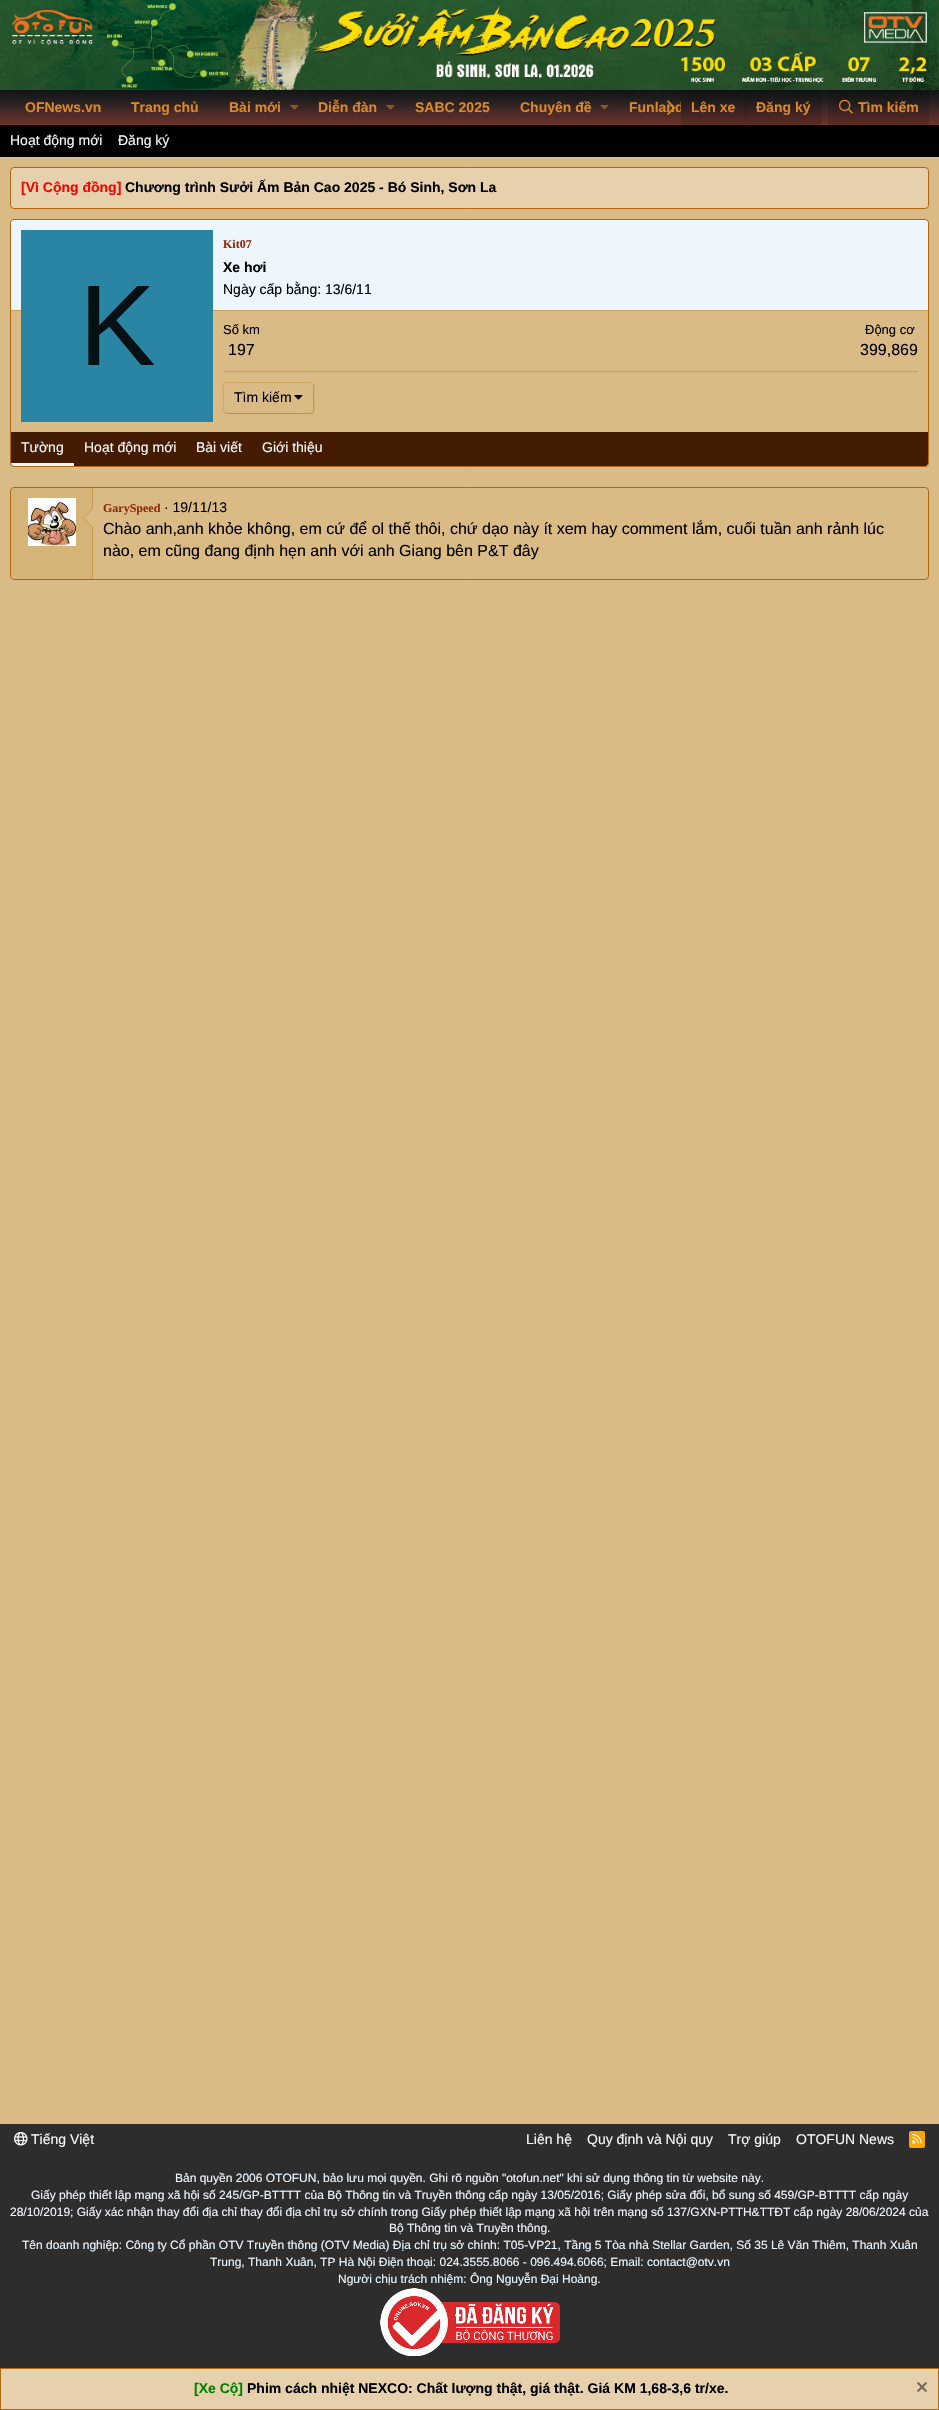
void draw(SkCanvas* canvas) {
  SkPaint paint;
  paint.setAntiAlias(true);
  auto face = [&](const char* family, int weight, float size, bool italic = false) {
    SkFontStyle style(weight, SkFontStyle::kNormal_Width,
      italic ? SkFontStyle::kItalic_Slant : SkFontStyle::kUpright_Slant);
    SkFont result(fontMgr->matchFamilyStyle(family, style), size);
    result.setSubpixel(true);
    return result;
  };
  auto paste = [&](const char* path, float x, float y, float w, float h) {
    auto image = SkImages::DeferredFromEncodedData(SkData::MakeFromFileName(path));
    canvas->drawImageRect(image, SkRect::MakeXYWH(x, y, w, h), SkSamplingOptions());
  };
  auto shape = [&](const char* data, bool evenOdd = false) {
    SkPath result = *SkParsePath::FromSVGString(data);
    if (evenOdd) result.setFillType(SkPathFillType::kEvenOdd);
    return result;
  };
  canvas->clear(0xffdabb85);
  paste("img/1.png", 0, 0, 939, 90);
  paste("img/2.png", 0, 90, 939, 35);
  paste("img/3.png", 290, 105, 9, 5);
  paste("img/3.png", 386, 105, 9, 5);
  paste("img/3.png", 600, 105, 9, 5);
  paint.setColor(0x26000000);
  canvas->drawPath(shape("M685 90H817C819 90 821 92 821 94V125H681V94C681 92 683 90 685 90Z"), paint);
  canvas->drawRect(SkRect::MakeXYWH(745, 90, 1, 35), paint);
  canvas->drawPath(shape("M832 90H925C927 90 929 92 929 94V125H828V94C828 92 830 90 832 90Z"), paint);
  paste("img/5.png", 839, 99, 14, 15);
  paint.setColor(0xff000000);
  canvas->drawRect(SkRect::MakeXYWH(0, 125, 939, 32), paint);
  paint.setColor(0xffe6d1ac);
  canvas->drawRoundRect(SkRect::MakeXYWH(10.5f, 167.5f, 918, 41), 3.5f, 3.5f, paint);
  paint.setStroke(true);
  paint.setStrokeWidth(1);
  paint.setColor(0xffae6814);
  canvas->drawRoundRect(SkRect::MakeXYWH(10.5f, 167.5f, 918, 41), 3.5f, 3.5f, paint);
  canvas->drawRoundRect(SkRect::MakeXYWH(10.5f, 219.5f, 918, 247), 3.5f, 3.5f, paint);
  paint.setStroke(false);
  paint.setColor(0xffedf6fd);
  canvas->drawPath(shape("M14 220H925C926.5 220 928 221.5 928 223V311H11V223C11 221.5 12.5 220 14 220Z"), paint);
  {
    const struct { float x, y, w, h; SkColor color; } items[] = {
      {11, 310, 917, 1, 0xffcca156},
      {21, 230, 192, 192, 0xff2985a3},
      {223, 371, 695, 1, 0xffcca156},
    };
    for (auto [x, y, w, h, color] : items) {
      paint.setColor(color);
      canvas->drawRect(SkRect::MakeXYWH(x, y, w, h), paint);
    }
  }
  paint.setStroke(true);
  paint.setColor(0xffbf8f3a);
  canvas->drawPath(shape("M312.5 383.5C315 386 313.5 391 313.5 394C313.5 416 318 413.5 296 413.5H227L224.5 412.5"), paint);
  paint.setColor(0xffcea55e);
  canvas->drawPath(shape("M224.5 412.5C222 410 223.5 405 223.5 402C223.5 380 219 382.5 241 382.5H310L312.5 383.5"), paint);
  paste("img/6.png", 294, 395, 9, 5);
  paint.setStroke(false);
  paint.setColor(0xff441b03);
  canvas->drawPath(shape("M11 432H928V463C928 464.5 926.5 466 925 466H14C12.5 466 11 464.5 11 463Z"), paint);
  paint.setColor(0xfff7f7f7);
  canvas->drawPath(shape("M11 463H74V466H14C12.5 466 11 464.5 11 463Z"), paint);
  paint.setStroke(true);
  paint.setColor(0xffae6814);
  canvas->drawRoundRect(SkRect::MakeXYWH(10.5f, 487.5f, 918, 92), 3.5f, 3.5f, paint);
  paint.setStroke(false);
  paint.setColor(0xffd6b377);
  canvas->drawPath(shape("M14 488H93V579H14C12.5 579 11 577.5 11 576V491C11 489.5 12.5 488 14 488Z"), paint);
  paint.setColor(0xffc89a4a);
  canvas->drawRect(SkRect::MakeXYWH(92, 488, 1, 91), paint);
  paste("img/7.png", 28, 498, 48, 48);
  canvas->drawPath(shape("M93 508V528L83 518Z"), paint);
  paint.setColor(0xffdabb85);
  canvas->drawPath(shape("M93 509V527L84 518Z"), paint);
  paint.setColor(0xff2d2d2d);
  canvas->drawRect(SkRect::MakeXYWH(0, 2124, 939, 244), paint);
  paste("img/8.png", 14, 2132, 14, 14);
  paint.setColor(0xffffa500);
  canvas->drawRoundRect(SkRect::MakeXYWH(909, 2131, 16, 17), 2, 2, paint);
  paste("img/9.png", 912, 2133, 10, 11);
  paste("img/10.png", 380, 2288, 180, 68);
  paint.setColor(0xffe6d1ac);
  canvas->drawRect(SkRect::MakeXYWH(0.5f, 2368.5f, 938, 41), paint);
  paint.setStroke(true);
  paint.setColor(0xffae6814);
  canvas->drawRect(SkRect::MakeXYWH(0.5f, 2368.5f, 938, 41), paint);
  paste("img/11.png", 917, 2382, 10, 10);
  auto f0 = face("Liberation Sans", 700, 14);
  paint.setStroke(false);
  paint.setColor(0xffdb8928);
  {
    const struct { const char* s; float x, y; } items[] = {
      {"OFNews.vn", 25, 112},
      {"Trang chủ", 131, 112},
      {"Bài mới", 229, 112},
      {"Diễn đàn", 318, 112},
      {"SABC 2025", 415, 112},
      {"Chuyên đề", 520, 112},
    };
    for (auto [s, x, y] : items) {
      canvas->drawString(s, x, y, f0, paint);
    }
  }
  canvas->save();
  canvas->clipRect(SkRect::MakeXYWH(0, 90, 681, 35));
  canvas->drawString("Funland", 629, 112, f0, paint);
  canvas->restore();
  paste("img/4.png", 667, 100, 9, 15);
  {
    const struct { const char* s; float x, y; } items[] = {
      {"Lên xe", 691, 112},
      {"Đăng ký", 756, 112},
      {"Tìm kiếm", 858, 112},
    };
    for (auto [s, x, y] : items) {
      canvas->drawString(s, x, y, f0, paint);
    }
  }
  auto f1 = face("Liberation Sans", 400, 14);
  paint.setColor(0xfff7f7f7);
  canvas->drawString("Hoạt động mới", 10, 145, f1, paint);
  canvas->drawString("Đăng ký", 118, 145, f1, paint);
  paint.setColor(0xffff0000);
  canvas->drawString("[Vì Cộng đồng]", 21, 192, f0, paint);
  paint.setColor(0xff000000);
  canvas->drawString("Chương trình Sưởi Ấm Bản Cao 2025 - Bó Sinh, Sơn La", 125, 192, f0, paint);
  auto f2 = face("Liberation Serif", 700, 12);
  paint.setColor(0xff912809);
  canvas->drawString("Kit07", 223, 248, f2, paint);
  paint.setColor(0xff000000);
  canvas->drawString("Xe hơi", 223, 272, f0, paint);
  canvas->drawString("Ngày cấp bằng: 13/6/11", 223, 294, f1, paint);
  auto f3 = face("Liberation Sans", 400, 115);
  paint.setColor(0xff051114);
  canvas->drawString("K", 79, 365, f3, paint);
  auto f4 = face("Liberation Sans", 400, 13);
  paint.setColor(0xff000000);
  canvas->drawString("Số km", 223, 334, f4, paint);
  auto f5 = face("Liberation Sans", 400, 16);
  canvas->drawString("197", 228, 355, f5, paint);
  canvas->drawString("Động cơ", 865, 334, f4, paint);
  canvas->drawString("399,869", 860, 355, f5, paint);
  canvas->drawString("Tìm kiếm", 234, 402, f1, paint);
  paint.setColor(0xffedf6fd);
  canvas->drawString("Tường", 21, 452, f1, paint);
  paint.setColor(0xfff7f7f7);
  {
    const struct { const char* s; float x, y; } items[] = {
      {"Hoạt động mới", 84, 452},
      {"Bài viết", 196, 452},
      {"Giới thiệu", 262, 452},
    };
    for (auto [s, x, y] : items) {
      canvas->drawString(s, x, y, f1, paint);
    }
  }
  paint.setColor(0xff912809);
  canvas->drawString("GarySpeed", 103, 512, f2, paint);
  paint.setColor(0xff000000);
  canvas->drawString("· 19/11/13", 164, 512, f1, paint);
  canvas->drawString("Chào anh,anh khỏe không, em cứ để ol thế thôi, chứ dạo này ít xem hay comment lắm, cuối tuần anh rảnh lúc", 103, 534, f5, paint);
  canvas->drawString("nào, em cũng đang định hẹn anh với anh Giang bên P&T đây", 103, 556, f5, paint);
  paint.setColor(0xfff7f7f7);
  {
    const struct { const char* s; float x, y; } items[] = {
      {"Tiếng Việt", 31, 2144},
      {"Liên hệ", 526, 2144},
      {"Quy định và Nội quy", 587, 2144},
      {"Trợ giúp", 728, 2144},
      {"OTOFUN News", 796, 2144},
    };
    for (auto [s, x, y] : items) {
      canvas->drawString(s, x, y, f1, paint);
    }
  }
  auto f6 = face("Liberation Sans", 400, 12);
  paint.setColor(0xffedf6fd);
  {
    const struct { const char* s; float x, y; } items[] = {
      {"Bản quyền 2006 OTOFUN, bảo lưu mọi quyền. Ghi rõ nguồn \"otofun.net\" khi sử dụng thông tin từ website này.", 175, 2182},
      {"Giấy phép thiết lập mạng xã hội số 245/GP-BTTTT của Bộ Thông tin và Truyền thông cấp ngày 13/05/2016; Giấy phép sửa đổi, bổ sung số 459/GP-BTTTT cấp ngày", 31, 2199},
      {"28/10/2019; Giấy xác nhận thay đổi địa chỉ thay đổi địa chỉ trụ sở chính trong Giấy phép thiết lập mạng xã hội trên mạng số 137/GXN-PTTH&TTĐT cấp ngày 28/06/2024 của", 10, 2216},
      {"Bộ Thông tin và Truyền thông.", 389, 2232},
      {"Tên doanh nghiệp: Công ty Cổ phần OTV Truyền thông (OTV Media) Địa chỉ trụ sở chính: T05-VP21, Tầng 5 Tòa nhà Stellar Garden, Số 35 Lê Văn Thiêm, Thanh Xuân", 22, 2249},
      {"Trung, Thanh Xuân, TP Hà Nội Điện thoại: 024.3555.8066 - 096.494.6066; Email: contact@otv.vn", 210, 2266},
      {"Người chịu trách nhiệm: Ông Nguyễn Đại Hoàng.", 338, 2283},
    };
    for (auto [s, x, y] : items) {
      canvas->drawString(s, x, y, f6, paint);
    }
  }
  paint.setColor(0xff008000);
  canvas->drawString("[Xe Cộ]", 194, 2393, f0, paint);
  paint.setColor(0xff000000);
  canvas->drawString("Phim cách nhiệt NEXCO: Chất lượng thật, giá thật. Giá KM 1,68-3,6 tr/xe.", 247, 2393, f0, paint);
}
